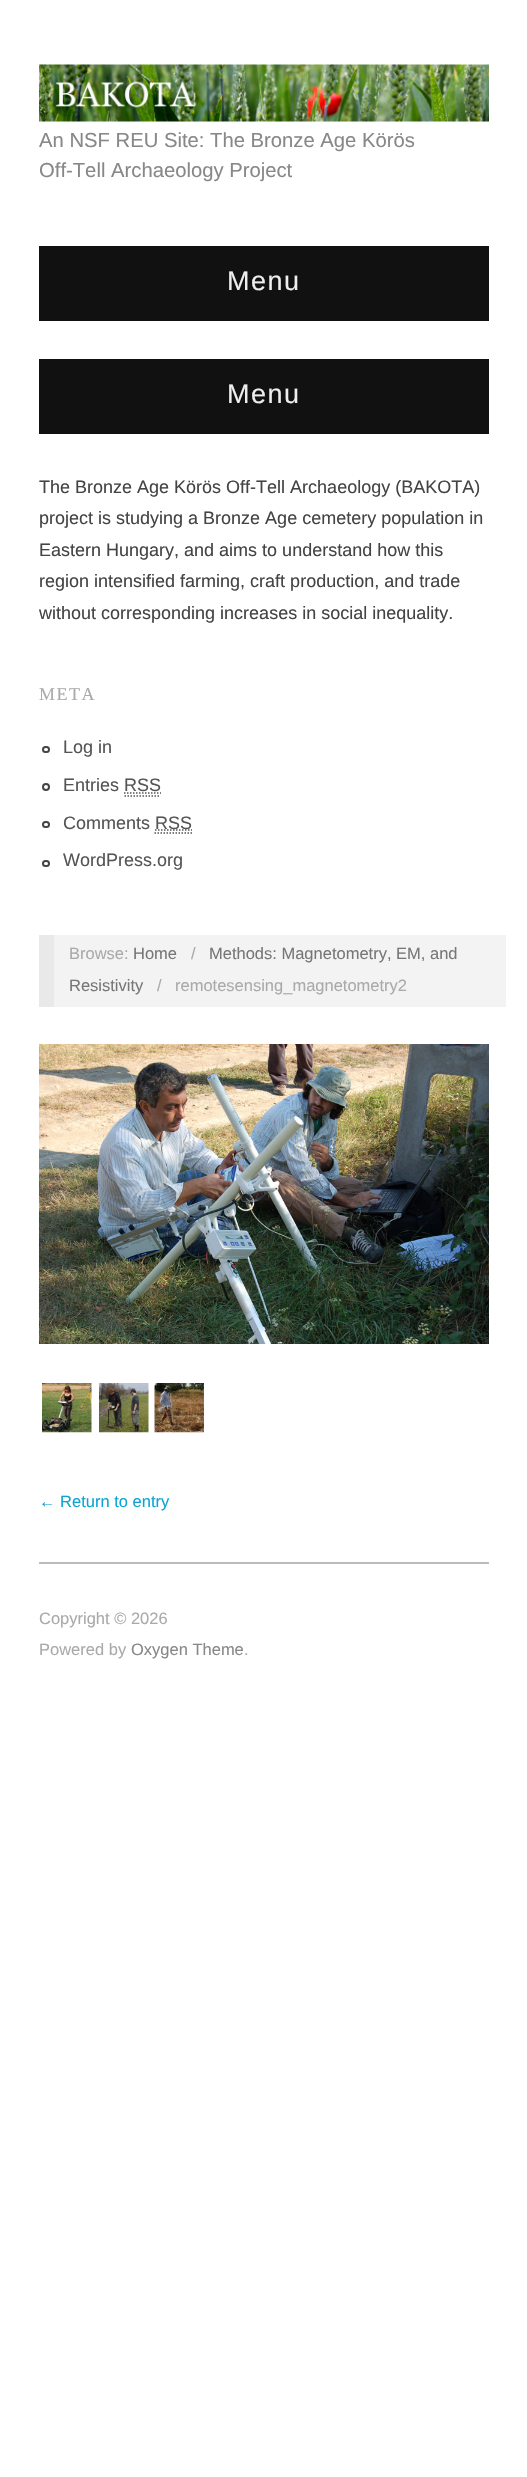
void draw(SkCanvas* canvas) {
  SkPaint paint;
  paint.setAntiAlias(true);
  auto face = [&](const char* family, int weight, float size, bool italic = false) {
    SkFontStyle style(weight, SkFontStyle::kNormal_Width,
      italic ? SkFontStyle::kItalic_Slant : SkFontStyle::kUpright_Slant);
    SkFont result(fontMgr->matchFamilyStyle(family, style), size);
    result.setSubpixel(true);
    return result;
  };
  auto writeSpaced = [&](const char* s, float x, float y, const SkFont& font, const SkPaint& ink, float letter, float word) {
    std::vector<SkGlyphID> glyphs(font.countText(s, strlen(s), SkTextEncoding::kUTF8));
    std::vector<float> xs(glyphs.size());
    font.textToGlyphs(s, strlen(s), SkTextEncoding::kUTF8, glyphs);
    font.getXPos(glyphs, xs, x);
    float extra = 0;
    for (size_t i = 0; i < glyphs.size(); i++) {
      xs[i] += extra;
      extra += letter + word * (glyphs[i] == font.unicharToGlyph(' '));
    }
    canvas->drawTextBlob(SkTextBlob::MakeFromPosHGlyphs(glyphs, xs, y, font), 0, 0, ink);
  };
  auto paste = [&](const char* path, float x, float y, float w, float h) {
    auto image = SkImages::DeferredFromEncodedData(SkData::MakeFromFileName(path));
    canvas->drawImageRect(image, SkRect::MakeXYWH(x, y, w, h), SkSamplingOptions());
  };
  auto shape = [&](const char* data, bool evenOdd = false) {
    SkPath result = *SkParsePath::FromSVGString(data);
    if (evenOdd) result.setFillType(SkPathFillType::kEvenOdd);
    return result;
  };
  canvas->clear(0xffffffff);
  paste("img/1.png", 39, 64, 450, 58);
  paint.setColor(0xff111111);
  canvas->drawRect(SkRect::MakeXYWH(39, 246, 450, 75), paint);
  canvas->drawRect(SkRect::MakeXYWH(39, 359, 450, 75), paint);
  paint.setStroke(true);
  paint.setStrokeWidth(2);
  paint.setColor(0xff444444);
  canvas->drawRoundRect(SkRect::MakeXYWH(43, 747, 6, 5), 2.5f, 2.5f, paint);
  canvas->drawCircle(46, 787, 3, paint);
  paint.setStrokeWidth(1.5f);
  paint.setColor(0xff555555);
  paint.setPathEffect(SkDashPathEffect::Make({{1.5f, 1.5f}}, 0));
  canvas->drawPath(shape("M124.5 796H160.5M124 793H161"), paint);
  paint.setPathEffect(nullptr);
  paint.setStrokeWidth(2);
  paint.setColor(0xff444444);
  canvas->drawRoundRect(SkRect::MakeXYWH(43, 822, 6, 5), 2.5f, 2.5f, paint);
  paint.setStrokeWidth(1.5f);
  paint.setColor(0xff555555);
  paint.setPathEffect(SkDashPathEffect::Make({{1.5f, 1.5f}}, 0));
  canvas->drawPath(shape("M154.5 833H192M155 830H192"), paint);
  paint.setPathEffect(nullptr);
  paint.setStrokeWidth(2);
  paint.setColor(0xff444444);
  canvas->drawRoundRect(SkRect::MakeXYWH(43, 861, 6, 5), 2.5f, 2.5f, paint);
  paint.setStroke(false);
  paint.setColor(0xfff3f3f3);
  canvas->drawRect(SkRect::MakeXYWH(54, 935, 452, 72), paint);
  paint.setColor(0xffe9e9e9);
  canvas->drawRect(SkRect::MakeXYWH(39, 935, 15, 72), paint);
  paste("img/2.png", 39, 1044, 450, 300);
  paste("img/3.png", 42, 1383, 50, 50);
  paste("img/4.png", 99, 1383, 50, 50);
  paste("img/5.png", 154, 1383, 50, 50);
  paint.setColor(0xffbbbbbb);
  canvas->drawRect(SkRect::MakeXYWH(39, 1562, 450, 2), paint);
  auto f0 = face("Liberation Sans", 400, 20.25f);
  paint.setColor(0xff888888);
  canvas->drawString("An NSF REU Site: The Bronze Age Körös", 39, 147, f0, paint);
  canvas->drawString("Off-Tell Archaeology Project", 39, 177, f0, paint);
  auto f1 = face("Liberation Sans", 400, 27);
  paint.setColor(0xffeeeeee);
  writeSpaced("Menu", 227, 290, f1, paint, 1.5f, 0);
  writeSpaced("Menu", 227, 403, f1, paint, 1.5f, 0);
  auto f2 = face("Liberation Sans", 400, 18);
  paint.setColor(0xff444444);
  {
    const struct { const char* s; float x, y; } items[] = {
      {"The Bronze Age Körös Off-Tell Archaeology (BAKOTA)", 39, 493},
      {"project is studying a Bronze Age cemetery population in", 39, 524},
      {"Eastern Hungary, and aims to understand how this", 39, 556},
      {"region intensified farming, craft production, and trade", 39, 587},
      {"without corresponding increases in social inequality.", 39, 619},
    };
    for (auto [s, x, y] : items) {
      canvas->drawString(s, x, y, f2, paint);
    }
  }
  auto f3 = face("Liberation Serif", 400, 18);
  paint.setColor(0xffaaaaaa);
  writeSpaced("META", 39, 700, f3, paint, 1.5f, 0);
  paint.setColor(0xff555555);
  {
    const struct { const char* s; float x, y; } items[] = {
      {"Log in", 63, 753},
      {"Entries RSS", 63, 791},
      {"Comments", 63, 829},
      {"RSS", 155, 829},
      {"WordPress.org", 63, 866},
    };
    for (auto [s, x, y] : items) {
      canvas->drawString(s, x, y, f2, paint);
    }
  }
  auto f4 = face("Liberation Sans", 400, 16.5f);
  paint.setColor(0xffaaaaaa);
  canvas->drawString("Browse:", 69, 959, f4, paint);
  paint.setColor(0xff777777);
  canvas->drawString("Home", 133, 959, f4, paint);
  paint.setColor(0xffaaaaaa);
  canvas->drawString("/", 191, 959, f4, paint);
  paint.setColor(0xff777777);
  canvas->drawString("Methods: Magnetometry, EM, and", 209, 959, f4, paint);
  canvas->drawString("Resistivity", 69, 991, f4, paint);
  paint.setColor(0xffaaaaaa);
  canvas->drawString("/", 157, 991, f4, paint);
  canvas->drawString("remotesensing_magnetometry2", 175, 991, f4, paint);
  paint.setColor(0xff0da4d3);
  canvas->drawString("← Return to entry", 39, 1507, f4, paint);
  paint.setColor(0xffaaaaaa);
  canvas->drawString("Copyright © 2026", 39, 1624, f4, paint);
  canvas->drawString("Powered by", 39, 1655, f4, paint);
  paint.setColor(0xff888888);
  canvas->drawString("Oxygen Theme", 131, 1655, f4, paint);
  paint.setColor(0xffaaaaaa);
  canvas->drawString(".", 244, 1655, f4, paint);
}
